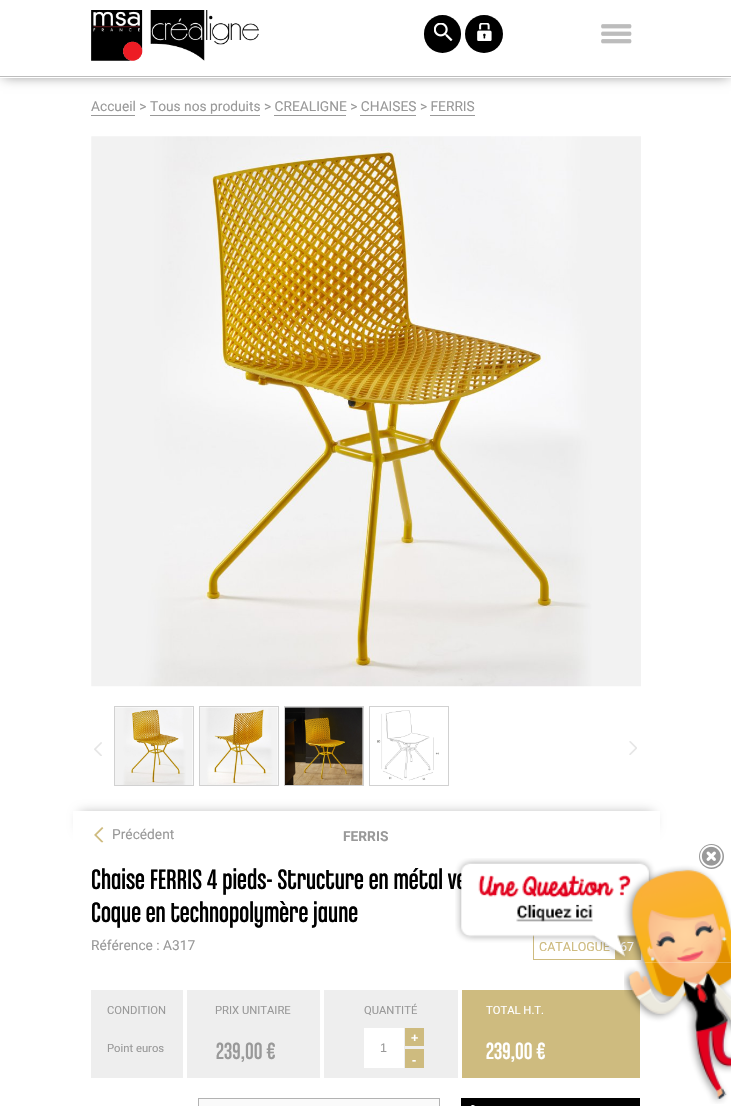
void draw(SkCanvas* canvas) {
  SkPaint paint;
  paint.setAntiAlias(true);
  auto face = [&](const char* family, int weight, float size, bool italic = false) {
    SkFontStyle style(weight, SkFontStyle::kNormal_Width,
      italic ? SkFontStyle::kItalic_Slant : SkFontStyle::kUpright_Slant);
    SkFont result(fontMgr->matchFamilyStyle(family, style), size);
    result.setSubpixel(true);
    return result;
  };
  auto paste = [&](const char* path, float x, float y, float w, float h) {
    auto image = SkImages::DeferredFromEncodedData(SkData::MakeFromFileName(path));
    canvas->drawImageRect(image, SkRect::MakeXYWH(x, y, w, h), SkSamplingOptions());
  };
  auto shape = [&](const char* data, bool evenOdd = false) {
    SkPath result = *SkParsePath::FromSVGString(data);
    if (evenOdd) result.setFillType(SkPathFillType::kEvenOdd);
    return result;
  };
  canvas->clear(0xffffffff);
  paint.setColor(0x80000000);
  paint.setMaskFilter(SkMaskFilter::MakeBlur(kNormal_SkBlurStyle, 6));
  canvas->drawRect(SkRect::MakeXYWH(3, 4, 726, 72), paint);
  paint.setMaskFilter(nullptr);
  paint.setColor(0xffffffff);
  canvas->drawRect(SkRect::MakeXYWH(0, 0, 731, 78), paint);
  paint.setColor(0xffbdbdbd);
  canvas->drawRect(SkRect::MakeXYWH(0, 76, 731, 1), paint);
  paste("img/1.png", 91, 10, 168, 51);
  paint.setColor(0xff000000);
  canvas->drawRoundRect(SkRect::MakeXYWH(424, 15, 37, 38), 18.5f, 18.5f, paint);
  paste("img/2.png", 434, 23, 19, 18);
  canvas->drawCircle(484, 34, 19, paint);
  paste("img/3.png", 477, 23, 15, 18);
  paste("img/4.png", 601, 24, 31, 20);
  {
    const struct { float x, y, w, h; SkColor color; } items[] = {
      {91, 115, 44, 1, 0xff999999},
      {150, 115, 110, 1, 0xff999999},
      {274, 115, 72, 1, 0xff999999},
      {360, 115, 56, 1, 0xff999999},
      {430, 115, 45, 1, 0xff999999},
    };
    for (auto [x, y, w, h, color] : items) {
      paint.setColor(color);
      canvas->drawRect(SkRect::MakeXYWH(x, y, w, h), paint);
    }
  }
  paste("img/5.png", 91, 136, 550, 551);
  paste("img/6.png", 94, 742, 8, 14);
  paint.setStroke(true);
  paint.setStrokeWidth(1);
  paint.setColor(0xffd1d1d1);
  canvas->drawRect(SkRect::MakeXYWH(114.5f, 706.5f, 79, 79), paint);
  paste("img/7.png", 115, 707, 78, 78);
  canvas->drawRect(SkRect::MakeXYWH(199.5f, 706.5f, 79, 79), paint);
  paste("img/8.png", 200, 707, 78, 78);
  canvas->drawRect(SkRect::MakeXYWH(284.5f, 706.5f, 79, 79), paint);
  paste("img/9.png", 285, 707, 78, 78);
  canvas->drawRect(SkRect::MakeXYWH(369.5f, 706.5f, 79, 79), paint);
  paste("img/10.png", 377, 710, 62, 71);
  paste("img/11.png", 629, 741, 8, 14);
  canvas->save();
  canvas->clipPath(shape("M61 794H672V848H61ZM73 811H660V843H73Z", true), true);
  paint.setStroke(false);
  paint.setColor(0x52000000);
  paint.setMaskFilter(SkMaskFilter::MakeBlur(kNormal_SkBlurStyle, 6));
  canvas->drawRect(SkRect::MakeXYWH(80, 813, 573, 16), paint);
  paint.setMaskFilter(nullptr);
  canvas->restore();
  paste("img/12.png", 94, 827, 10, 16);
  paint.setStroke(true);
  paint.setColor(0xffcebb7f);
  canvas->drawRect(SkRect::MakeXYWH(533.5f, 934.5f, 107, 25), paint);
  paint.setStroke(false);
  {
    const struct { float x, y, w, h; SkColor color; } items[] = {
      {615, 935, 25, 24, 0xffcebb7f},
      {91, 990, 92, 88, 0xffeeeeee},
      {187, 990, 133, 88, 0xffeeeeee},
      {324, 990, 134, 88, 0xffeeeeee},
      {364, 1028, 40, 40, 0xffffffff},
      {405, 1028, 19, 18, 0xffcebb7f},
      {405, 1049, 19, 19, 0xffcebb7f},
      {462, 990, 178, 88, 0xffcebb7f},
    };
    for (auto [x, y, w, h, color] : items) {
      paint.setColor(color);
      canvas->drawRect(SkRect::MakeXYWH(x, y, w, h), paint);
    }
  }
  paint.setColor(0xfffafafa);
  canvas->drawRect(SkRect::MakeXYWH(198.5f, 1098.5f, 241, 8), paint);
  paint.setStroke(true);
  paint.setColor(0xffb2b2b2);
  canvas->drawRect(SkRect::MakeXYWH(198.5f, 1098.5f, 241, 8), paint);
  paint.setStroke(false);
  paint.setColor(0xff000000);
  canvas->drawRect(SkRect::MakeXYWH(461, 1098, 179, 8), paint);
  paste("img/13.png", 471, 1105, 4, 1);
  auto f0 = face("Roboto", 400, 13.75f);
  paint.setColor(0xff999999);
  canvas->drawString("Accueil > Tous nos produits > CREALIGNE > CHAISES > FERRIS", 91, 111, f0, paint);
  canvas->drawString("Précédent", 112, 839, f0, paint);
  auto f1 = face("Roboto", 700, 13.75f);
  canvas->drawString("FERRIS", 343, 841, f1, paint);
  auto f2 = face("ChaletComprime", 400, 30);
  paint.setColor(0xff000000);
  canvas->drawString("Chaise FERRIS 4 pieds- Structure en métal ve", 91, 889, f2, paint);
  canvas->drawString("Coque en technopolymère jaune", 91, 922, f2, paint);
  paint.setColor(0xff999999);
  canvas->drawString("Référence : A317", 91, 950, f0, paint);
  auto f3 = face("Roboto", 400, 12.5f);
  paint.setColor(0xffcebb7f);
  canvas->drawString("CATALOGUE", 539, 951, f3, paint);
  paint.setColor(0xffffffff);
  canvas->drawString("67", 620, 951, f3, paint);
  auto f4 = face("Roboto", 400, 11.25f);
  paint.setColor(0xff999999);
  {
    const struct { const char* s; float x, y; } items[] = {
      {"CONDITION", 107, 1014},
      {"Point euros", 107, 1052},
      {"PRIX UNITAIRE", 215, 1014},
    };
    for (auto [s, x, y] : items) {
      canvas->drawString(s, x, y, f4, paint);
    }
  }
  auto f5 = face("ChaletComprime", 400, 25);
  canvas->drawString("239,00 €", 216, 1059, f5, paint);
  canvas->drawString("QUANTITÉ", 364, 1014, f4, paint);
  auto f6 = face("Liberation Sans", 400, 12.5f);
  canvas->drawString("1", 380, 1052, f6, paint);
  auto f7 = face("Liberation Sans", 700, 12.5f);
  paint.setColor(0xffffffff);
  canvas->drawString("+", 411, 1042, f7, paint);
  canvas->drawString("-", 412, 1064, f7, paint);
  canvas->drawString("TOTAL H.T.", 486, 1014, f4, paint);
  canvas->drawString("239,00 €", 486, 1059, f5, paint);
  paste("img/15.png", 455, 858, 276, 105);
  paint.setColor(0xff999999);
  canvas->drawCircle(711.5f, 856.5f, 12.5f, paint);
  paste("img/14.png", 700, 845, 23, 23);
  paste("img/16.png", 624, 962, 107, 142);
}
